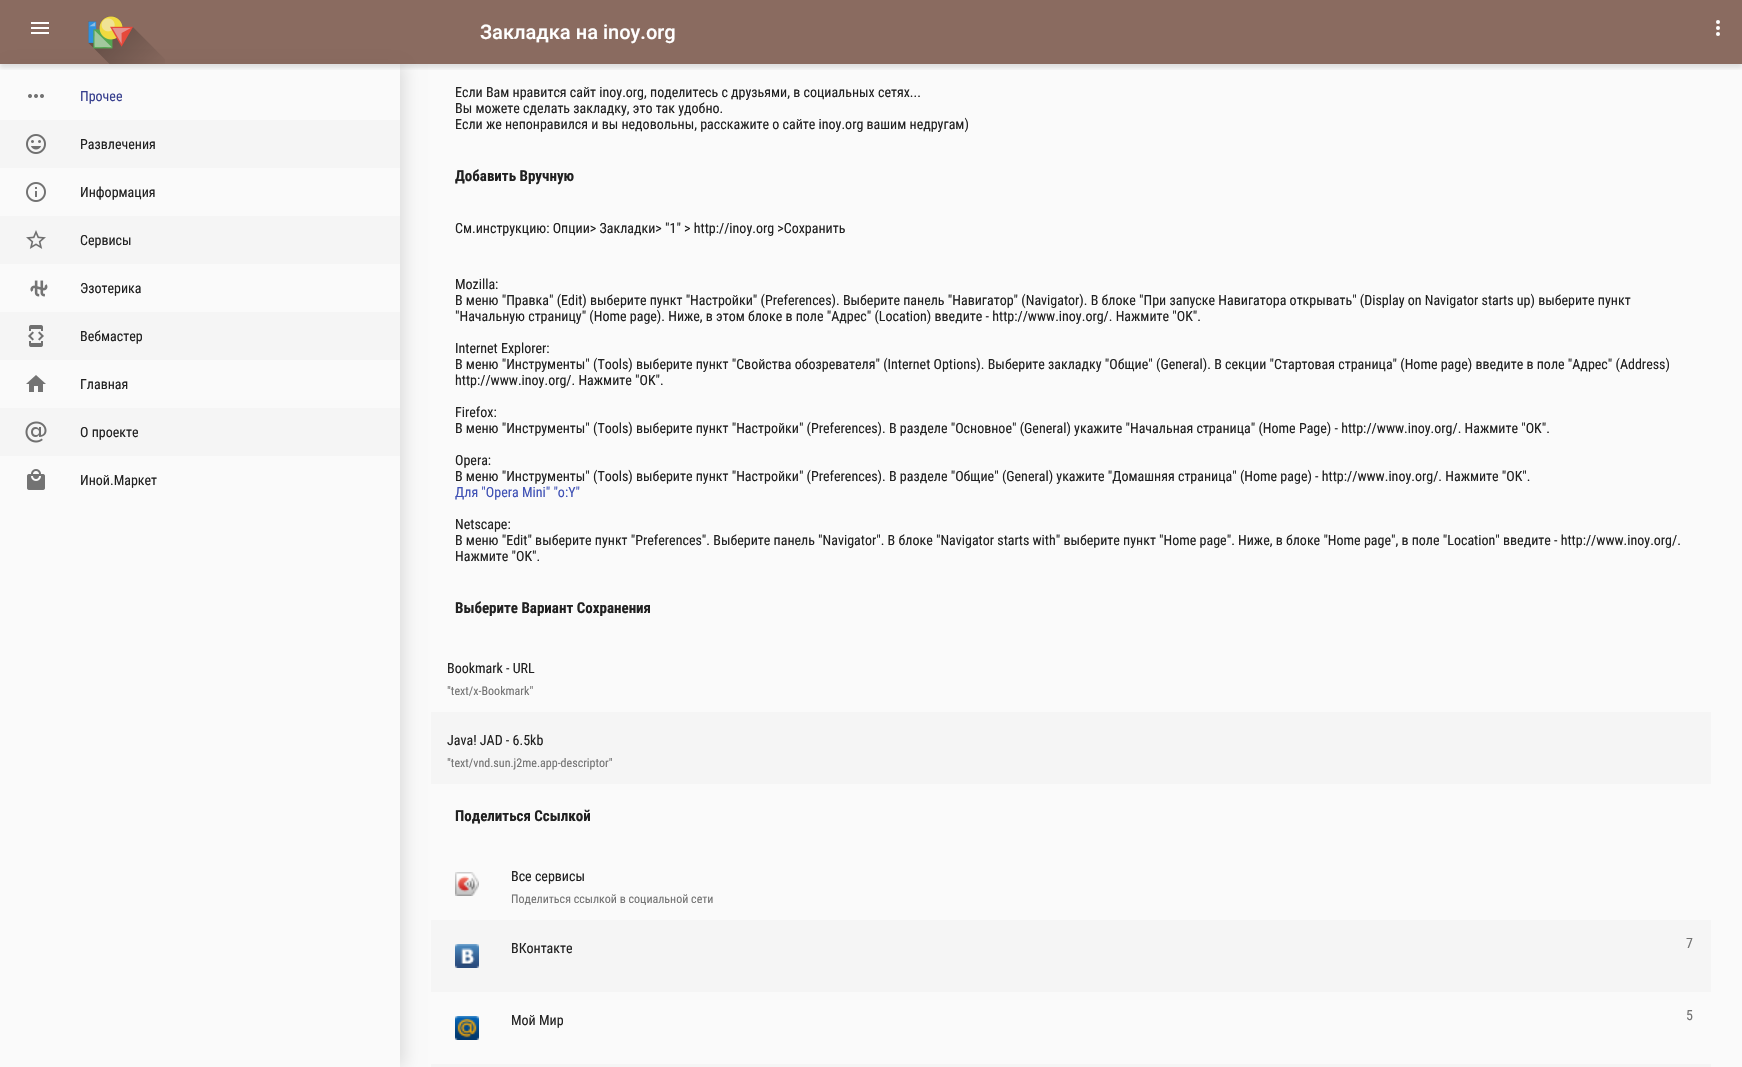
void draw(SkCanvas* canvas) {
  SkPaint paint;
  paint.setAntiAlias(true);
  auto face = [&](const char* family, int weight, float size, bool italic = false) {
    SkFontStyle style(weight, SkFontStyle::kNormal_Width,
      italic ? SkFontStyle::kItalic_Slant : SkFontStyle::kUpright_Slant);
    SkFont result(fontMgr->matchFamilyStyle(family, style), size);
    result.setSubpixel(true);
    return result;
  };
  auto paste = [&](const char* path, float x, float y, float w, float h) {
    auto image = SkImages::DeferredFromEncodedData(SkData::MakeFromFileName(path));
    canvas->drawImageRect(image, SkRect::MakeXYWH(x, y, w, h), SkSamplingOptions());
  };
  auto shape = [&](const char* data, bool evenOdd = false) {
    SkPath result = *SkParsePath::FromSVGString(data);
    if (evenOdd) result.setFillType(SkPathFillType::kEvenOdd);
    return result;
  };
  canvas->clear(0xfffafafa);
  canvas->save();
  canvas->clipRect(SkRect::MakeXYWH(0, 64, 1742, 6));
  paint.setColor(0x1a000000);
  paint.setMaskFilter(SkMaskFilter::MakeBlur(kNormal_SkBlurStyle, 2));
  canvas->drawRect(SkRect::MakeXYWH(0, 4, 1742, 64), paint);
  paint.setMaskFilter(nullptr);
  canvas->restore();
  canvas->save();
  canvas->clipPath(shape("M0 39H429V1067H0ZM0 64H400V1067H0Z", true), true);
  paint.setColor(0x1f000000);
  paint.setMaskFilter(SkMaskFilter::MakeBlur(kNormal_SkBlurStyle, 8));
  canvas->drawRect(SkRect::MakeXYWH(4, 64, 400, 1003), paint);
  paint.setMaskFilter(nullptr);
  canvas->restore();
  paint.setColor(0xde795548);
  canvas->drawRect(SkRect::MakeXYWH(0, 0, 1742, 64), paint);
  paste("img/1.png", 88, 16, 77, 48);
  {
    const struct { float x, y, w, h; SkColor color; } items[] = {
      {31, 22, 18, 2, 0xffffffff},
      {31, 27, 18, 2, 0xffffffff},
      {31, 32, 18, 2, 0xffffffff},
    };
    for (auto [x, y, w, h, color] : items) {
      paint.setColor(color);
      canvas->drawRect(SkRect::MakeXYWH(x, y, w, h), paint);
    }
  }
  paste("img/2.png", 28, 94, 16, 4);
  paint.setColor(0xfff5f5f5);
  canvas->drawRect(SkRect::MakeXYWH(0, 120, 400, 48), paint);
  paste("img/3.png", 26, 134, 20, 20);
  paste("img/4.png", 26, 182, 20, 20);
  canvas->drawRect(SkRect::MakeXYWH(0, 216, 400, 48), paint);
  paste("img/5.png", 26, 230, 20, 19);
  paste("img/6.png", 30, 280, 18, 17);
  canvas->drawRect(SkRect::MakeXYWH(0, 312, 400, 48), paint);
  paste("img/7.png", 28, 325, 16, 22);
  paste("img/8.png", 26, 375, 20, 17);
  canvas->drawRect(SkRect::MakeXYWH(0, 408, 400, 48), paint);
  paste("img/9.png", 25, 421, 22, 22);
  paste("img/10.png", 27, 469, 18, 21);
  canvas->drawRect(SkRect::MakeXYWH(431, 712, 1280, 72), paint);
  paste("img/11.png", 455, 872, 24, 24);
  canvas->drawRect(SkRect::MakeXYWH(431, 920, 1280, 72), paint);
  paste("img/12.png", 455, 944, 24, 24);
  paste("img/13.png", 455, 1016, 24, 24);
  canvas->drawRect(SkRect::MakeXYWH(431, 1064, 1280, 3), paint);
  paint.setColor(0xffffffff);
  canvas->drawCircle(1718, 22, 2, paint);
  canvas->drawCircle(1718, 28, 2, paint);
  canvas->drawCircle(1718, 34, 2, paint);
  auto f0 = face("Roboto Condensed", 400, 14);
  paint.setColor(0xff373f8e);
  canvas->drawString("Прочее", 80, 101, f0, paint);
  paint.setColor(0xff212121);
  {
    const struct { const char* s; float x, y; } items[] = {
      {"Развлечения", 80, 149},
      {"Информация", 80, 197},
      {"Сервисы", 80, 245},
      {"Эзотерика", 80, 293},
      {"Вебмастер", 80, 341},
      {"Главная", 80, 389},
      {"О проекте", 80, 437},
      {"Иной.Маркет", 80, 485},
    };
    for (auto [s, x, y] : items) {
      canvas->drawString(s, x, y, f0, paint);
    }
  }
  auto f1 = face("Roboto", 500, 20);
  paint.setColor(0xffffffff);
  canvas->drawString("Закладка на inoy.org", 480, 39, f1, paint);
  paint.setColor(0xff212121);
  {
    const struct { const char* s; float x, y; } items[] = {
      {"Если Вам нравится сайт inoy.org, поделитесь с друзьями, в социальных сетях...", 455, 97},
      {"Вы можете сделать закладку, это так удобно.", 455, 113},
      {"Если же непонравился и вы недовольны, расскажите о сайте inoy.org вашим недругам)", 455, 129},
    };
    for (auto [s, x, y] : items) {
      canvas->drawString(s, x, y, f0, paint);
    }
  }
  auto f2 = face("Roboto Condensed", 700, 15);
  canvas->drawString("Добавить Вручную", 455, 181, f2, paint);
  {
    const struct { const char* s; float x, y; } items[] = {
      {"См.инструкцию: Опции> Закладки> \"1\" > http://inoy.org >Сохранить", 455, 233},
      {"Mozilla:", 455, 289},
      {"В меню \"Правка\" (Edit) выберите пункт \"Настройки\" (Preferences). Выберите панель \"Навигатор\" (Navigator). В блоке \"При запуске Навигатора открывать\" (Display on Navigator starts up) выберите пункт", 455, 305},
      {"\"Начальную страницу\" (Home page). Ниже, в этом блоке в поле \"Адрес\" (Location) введите - http://www.inoy.org/. Нажмите \"OK\".", 455, 321},
      {"Internet Explorer:", 455, 353},
      {"В меню \"Инструменты\" (Tools) выберите пункт \"Свойства обозревателя\" (Internet Options). Выберите закладку \"Общие\" (General). В секции \"Стартовая страница\" (Home page) введите в поле \"Адрес\" (Address)", 455, 369},
      {"http://www.inoy.org/. Нажмите \"OK\".", 455, 385},
      {"Firefox:", 455, 417},
      {"В меню \"Инструменты\" (Tools) выберите пункт \"Настройки\" (Preferences). В разделе \"Основное\" (General) укажите \"Начальная страница\" (Home Page) - http://www.inoy.org/. Нажмите \"OK\".", 455, 433},
      {"Opera:", 455, 465},
      {"В меню \"Инструменты\" (Tools) выберите пункт \"Настройки\" (Preferences). В разделе \"Общие\" (General) укажите \"Домашняя страница\" (Home page) - http://www.inoy.org/. Нажмите \"OK\".", 455, 481},
    };
    for (auto [s, x, y] : items) {
      canvas->drawString(s, x, y, f0, paint);
    }
  }
  paint.setColor(0xff3f51b5);
  canvas->drawString("Для \"Opera Mini\" \"o:Y\"", 455, 497, f0, paint);
  paint.setColor(0xff212121);
  {
    const struct { const char* s; float x, y; } items[] = {
      {"Netscape:", 455, 529},
      {"В меню \"Edit\" выберите пункт \"Preferences\". Выберите панель \"Navigator\". В блоке \"Navigator starts with\" выберите пункт \"Home page\". Ниже, в блоке \"Home page\", в поле \"Location\" введите - http://www.inoy.org/.", 455, 545},
      {"Нажмите \"OK\".", 455, 561},
    };
    for (auto [s, x, y] : items) {
      canvas->drawString(s, x, y, f0, paint);
    }
  }
  canvas->drawString("Выберите Вариант Сохранения", 455, 613, f2, paint);
  canvas->drawString("Bookmark - URL", 447, 673, f0, paint);
  auto f3 = face("Roboto Condensed", 400, 12);
  paint.setColor(0xff737373);
  canvas->drawString("\"text/x-Bookmark\"", 447, 695, f3, paint);
  paint.setColor(0xff212121);
  canvas->drawString("Java! JAD - 6.5kb", 447, 745, f0, paint);
  paint.setColor(0xff737373);
  canvas->drawString("\"text/vnd.sun.j2me.app-descriptor\"", 447, 767, f3, paint);
  paint.setColor(0xff212121);
  canvas->drawString("Поделиться Ссылкой", 455, 821, f2, paint);
  canvas->drawString("Все сервисы", 511, 881, f0, paint);
  paint.setColor(0xff737373);
  canvas->drawString("Поделиться ссылкой в социальной сети", 511, 903, f3, paint);
  paint.setColor(0xff212121);
  canvas->drawString("ВКонтакте", 511, 953, f0, paint);
  paint.setColor(0xff737373);
  canvas->drawString("7", 1686, 948, f0, paint);
  paint.setColor(0xff212121);
  canvas->drawString("Мой Мир", 511, 1025, f0, paint);
  paint.setColor(0xff737373);
  canvas->drawString("5", 1686, 1020, f0, paint);
}
